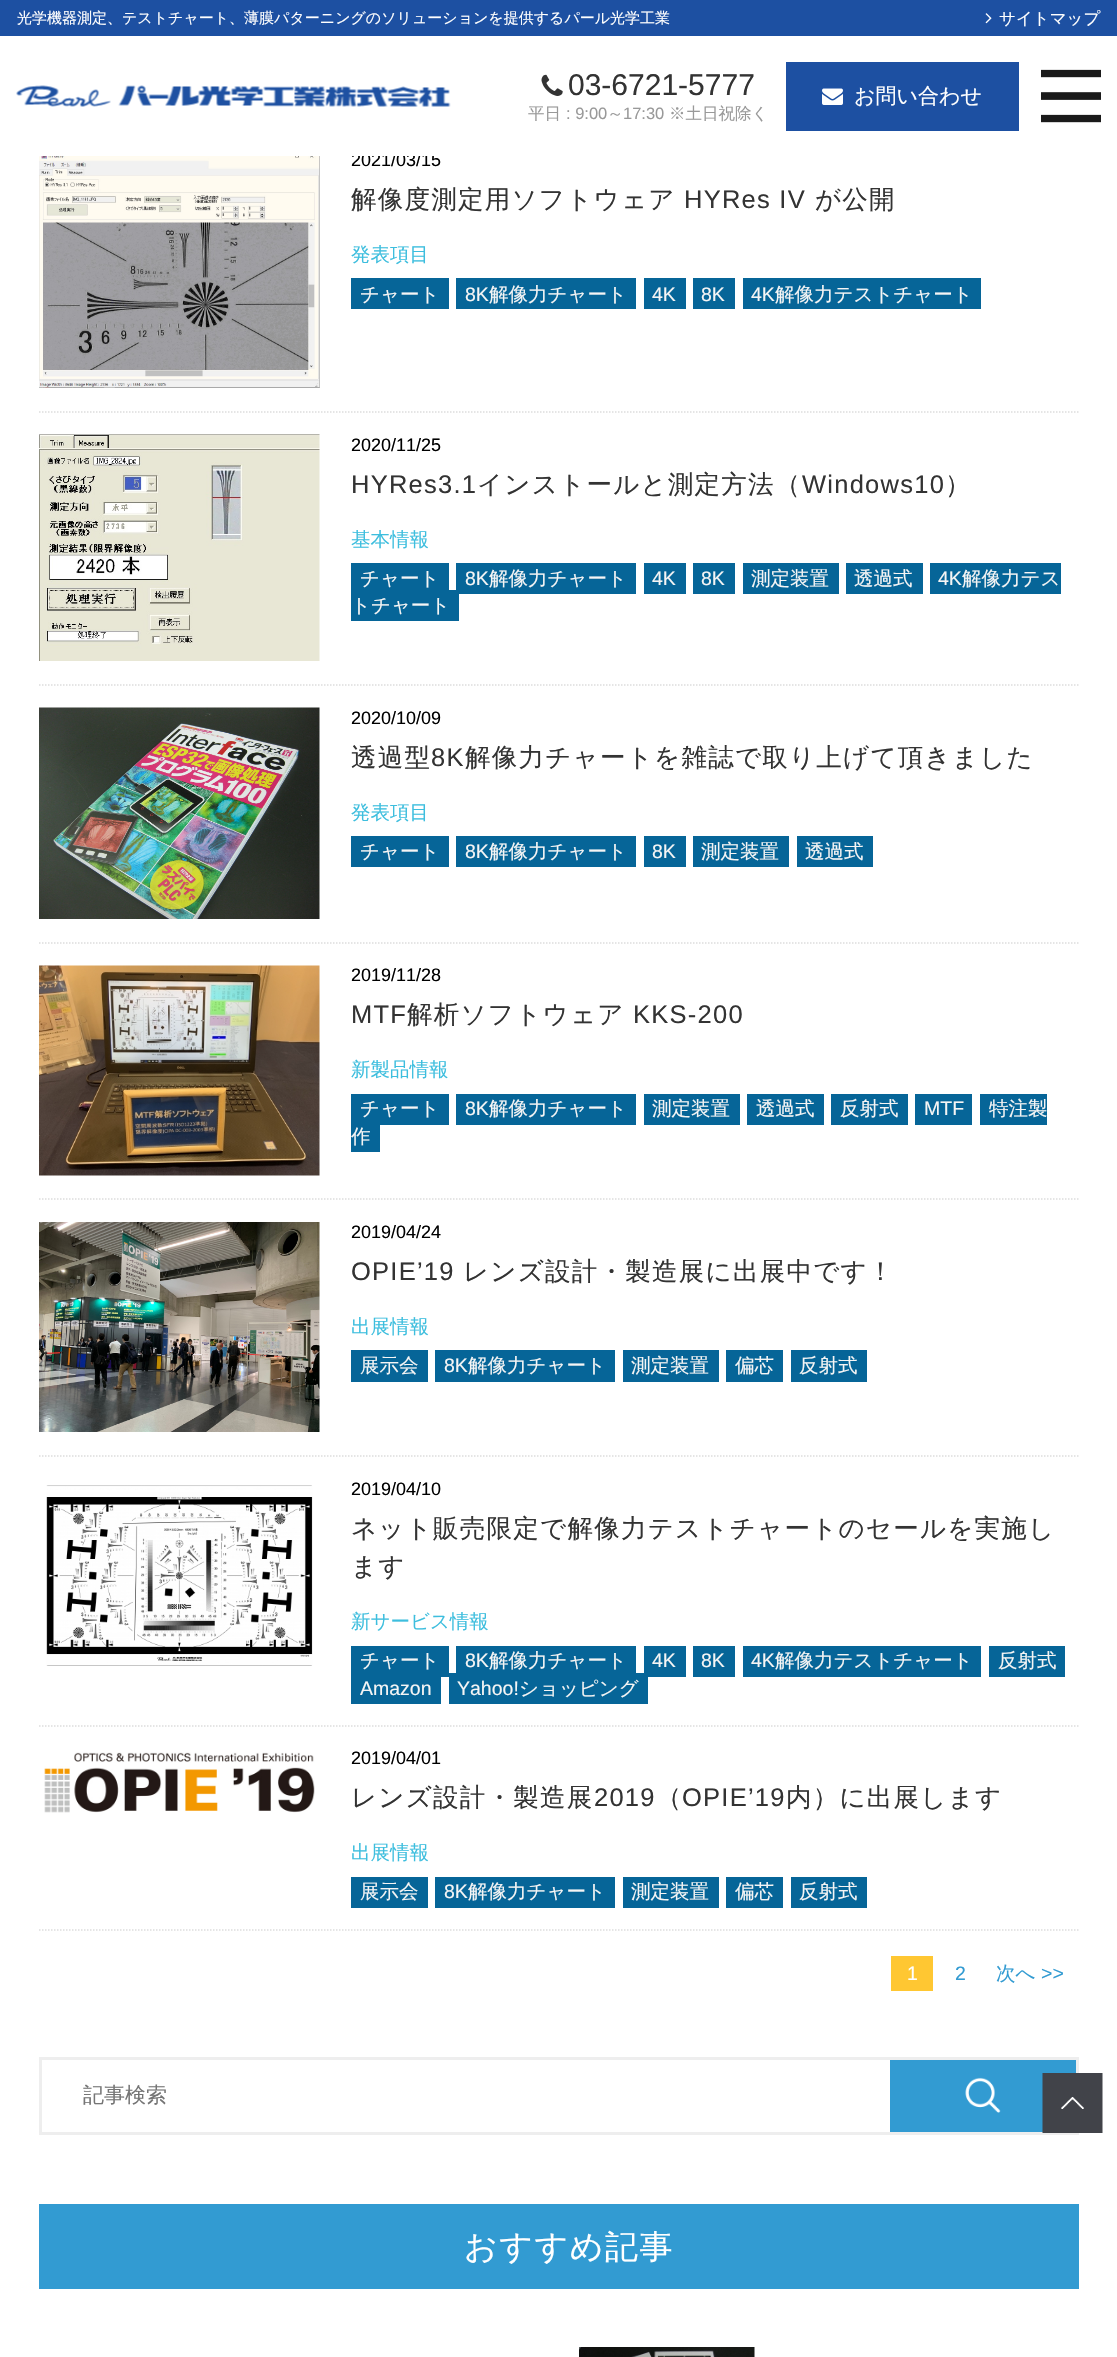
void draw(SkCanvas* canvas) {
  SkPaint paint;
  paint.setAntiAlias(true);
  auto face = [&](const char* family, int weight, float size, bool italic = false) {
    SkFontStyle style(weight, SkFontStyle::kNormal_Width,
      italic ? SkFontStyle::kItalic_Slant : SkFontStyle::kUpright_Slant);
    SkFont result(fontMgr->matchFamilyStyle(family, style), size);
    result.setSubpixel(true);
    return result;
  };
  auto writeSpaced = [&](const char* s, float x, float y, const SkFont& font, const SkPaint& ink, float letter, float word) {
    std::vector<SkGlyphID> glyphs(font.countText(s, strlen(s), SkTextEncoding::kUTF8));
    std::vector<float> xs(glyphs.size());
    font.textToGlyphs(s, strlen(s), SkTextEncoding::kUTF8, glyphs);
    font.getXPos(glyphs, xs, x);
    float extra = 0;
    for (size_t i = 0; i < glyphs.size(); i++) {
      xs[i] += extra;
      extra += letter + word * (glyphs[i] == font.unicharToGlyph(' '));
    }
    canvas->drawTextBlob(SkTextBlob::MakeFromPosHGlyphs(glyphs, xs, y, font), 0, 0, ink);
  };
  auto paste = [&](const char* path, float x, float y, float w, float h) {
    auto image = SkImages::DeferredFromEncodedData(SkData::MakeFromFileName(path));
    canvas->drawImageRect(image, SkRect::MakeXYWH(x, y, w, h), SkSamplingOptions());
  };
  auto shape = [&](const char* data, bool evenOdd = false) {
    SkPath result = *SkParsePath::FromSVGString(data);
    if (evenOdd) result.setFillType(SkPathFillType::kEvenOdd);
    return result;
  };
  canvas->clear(0xffffffff);
  paint.setColor(0xff1d50a2);
  canvas->drawRect(SkRect::MakeXYWH(0, 0, 1117, 36), paint);
  paste("img/1.png", 985, 13, 7, 11);
  paste("img/2.png", 16, 85, 435, 22);
  paste("img/3.png", 541, 74, 22, 22);
  canvas->drawRect(SkRect::MakeXYWH(786, 62, 233, 69), paint);
  paste("img/4.png", 822, 88, 21, 17);
  paste("img/5.png", 1041, 69, 60, 54);
  paint.setStroke(true);
  paint.setStrokeWidth(1.5f);
  paint.setColor(0xffdddddd);
  paint.setPathEffect(SkDashPathEffect::Make({{1.5f, 1.5f}}, 0));
  canvas->drawPath(shape("M39 412H1078.5"), paint);
  paint.setPathEffect(nullptr);
  paste("img/6.png", 39, 156, 281, 232);
  paint.setStroke(false);
  {
    const struct { float x, y, w, h; SkColor color; } items[] = {
      {351, 278, 98, 31, 0xff066598},
      {456, 278, 180, 31, 0xff066598},
      {644, 278, 42, 31, 0xff066598},
      {693, 278, 42, 31, 0xff066598},
      {743, 278, 238, 31, 0xff066598},
    };
    for (auto [x, y, w, h, color] : items) {
      paint.setColor(color);
      canvas->drawRect(SkRect::MakeXYWH(x, y, w, h), paint);
    }
  }
  paint.setStroke(true);
  paint.setColor(0xffdddddd);
  paint.setPathEffect(SkDashPathEffect::Make({{1.5f, 1.5f}}, 0));
  canvas->drawPath(shape("M39 685H1078.5"), paint);
  paint.setPathEffect(nullptr);
  paste("img/7.png", 39, 434, 281, 227);
  paint.setStroke(false);
  {
    const struct { float x, y, w, h; SkColor color; } items[] = {
      {351, 563, 98, 27, 0xff066598},
      {456, 563, 180, 31, 0xff066598},
      {644, 563, 42, 31, 0xff066598},
      {693, 563, 42, 31, 0xff066598},
      {743, 563, 96, 31, 0xff066598},
      {846, 563, 77, 31, 0xff066598},
      {930, 563, 131, 31, 0xff066598},
      {351, 590, 108, 31, 0xff066598},
    };
    for (auto [x, y, w, h, color] : items) {
      paint.setColor(color);
      canvas->drawRect(SkRect::MakeXYWH(x, y, w, h), paint);
    }
  }
  paint.setStroke(true);
  paint.setColor(0xffdddddd);
  paint.setPathEffect(SkDashPathEffect::Make({{1.5f, 1.5f}}, 0));
  canvas->drawPath(shape("M39 943H1078.5"), paint);
  paint.setPathEffect(nullptr);
  paste("img/8.png", 39, 707, 281, 212);
  paint.setStroke(false);
  {
    const struct { float x, y, w, h; SkColor color; } items[] = {
      {351, 836, 98, 31, 0xff066598},
      {456, 836, 180, 31, 0xff066598},
      {644, 836, 42, 31, 0xff066598},
      {693, 836, 96, 31, 0xff066598},
      {797, 836, 76, 31, 0xff066598},
    };
    for (auto [x, y, w, h, color] : items) {
      paint.setColor(color);
      canvas->drawRect(SkRect::MakeXYWH(x, y, w, h), paint);
    }
  }
  paint.setStroke(true);
  paint.setColor(0xffdddddd);
  paint.setPathEffect(SkDashPathEffect::Make({{1.5f, 1.5f}}, 0));
  canvas->drawPath(shape("M39 1199H1078.5"), paint);
  paint.setPathEffect(nullptr);
  paste("img/9.png", 39, 965, 281, 211);
  paint.setStroke(false);
  {
    const struct { float x, y, w, h; SkColor color; } items[] = {
      {351, 1094, 98, 31, 0xff066598},
      {456, 1094, 180, 31, 0xff066598},
      {644, 1094, 96, 31, 0xff066598},
      {747, 1094, 77, 31, 0xff066598},
      {831, 1094, 77, 31, 0xff066598},
      {915, 1094, 57, 31, 0xff066598},
      {980, 1094, 67, 31, 0xff066598},
      {351, 1125, 29, 27, 0xff066598},
    };
    for (auto [x, y, w, h, color] : items) {
      paint.setColor(color);
      canvas->drawRect(SkRect::MakeXYWH(x, y, w, h), paint);
    }
  }
  paint.setStroke(true);
  paint.setColor(0xffdddddd);
  paint.setPathEffect(SkDashPathEffect::Make({{1.5f, 1.5f}}, 0));
  canvas->drawPath(shape("M39 1456H1078.5"), paint);
  paint.setPathEffect(nullptr);
  paste("img/10.png", 39, 1222, 281, 210);
  paint.setStroke(false);
  {
    const struct { float x, y, w, h; SkColor color; } items[] = {
      {351, 1350, 77, 32, 0xff066598},
      {435, 1350, 180, 32, 0xff066598},
      {623, 1350, 96, 32, 0xff066598},
      {726, 1350, 57, 32, 0xff066598},
      {791, 1350, 76, 32, 0xff066598},
    };
    for (auto [x, y, w, h, color] : items) {
      paint.setColor(color);
      canvas->drawRect(SkRect::MakeXYWH(x, y, w, h), paint);
    }
  }
  paint.setStroke(true);
  paint.setColor(0xffdddddd);
  paint.setPathEffect(SkDashPathEffect::Make({{1.5f, 1.5f}}, 0));
  canvas->drawPath(shape("M39 1726H1078.5"), paint);
  paint.setPathEffect(nullptr);
  paste("img/11.png", 46, 1485, 267, 181);
  paint.setStroke(false);
  {
    const struct { float x, y, w, h; SkColor color; } items[] = {
      {351, 1646, 98, 31, 0xff066598},
      {456, 1646, 180, 27, 0xff066598},
      {644, 1646, 42, 31, 0xff066598},
      {693, 1646, 42, 31, 0xff066598},
      {743, 1646, 238, 31, 0xff066598},
      {989, 1646, 76, 31, 0xff066598},
      {351, 1677, 90, 27, 0xff066598},
      {449, 1673, 199, 31, 0xff066598},
    };
    for (auto [x, y, w, h, color] : items) {
      paint.setColor(color);
      canvas->drawRect(SkRect::MakeXYWH(x, y, w, h), paint);
    }
  }
  paint.setStroke(true);
  paint.setColor(0xffdddddd);
  paint.setPathEffect(SkDashPathEffect::Make({{1.5f, 1.5f}}, 0));
  canvas->drawPath(shape("M39 1930H1078.5"), paint);
  paint.setPathEffect(nullptr);
  paste("img/12.png", 44, 1752, 271, 61);
  paint.setStroke(false);
  {
    const struct { float x, y, w, h; SkColor color; } items[] = {
      {351, 1877, 77, 31, 0xff066598},
      {435, 1877, 180, 31, 0xff066598},
      {623, 1877, 96, 31, 0xff066598},
      {726, 1877, 57, 31, 0xff066598},
      {791, 1877, 76, 31, 0xff066598},
      {891, 1956, 42, 35, 0xffffc732},
    };
    for (auto [x, y, w, h, color] : items) {
      paint.setColor(color);
      canvas->drawRect(SkRect::MakeXYWH(x, y, w, h), paint);
    }
  }
  paint.setStroke(true);
  paint.setStrokeWidth(3);
  paint.setColor(0xffeeeeee);
  canvas->drawRect(SkRect::MakeXYWH(40.5f, 2058.5f, 1037, 75), paint);
  paint.setStroke(false);
  paint.setColor(0xff329bd2);
  canvas->drawRect(SkRect::MakeXYWH(890, 2060, 186, 72), paint);
  paste("img/13.png", 965, 2077, 36, 36);
  canvas->drawRect(SkRect::MakeXYWH(39, 2204, 1040, 85), paint);
  paste("img/14.png", 579, 2347, 176, 10);
  paste("img/15.png", 1042, 2073, 61, 60);
  auto f0 = face("WenQuanYi Zen Hei", 500, 15);
  paint.setColor(0xffffffff);
  canvas->drawString("光学機器測定、テストチャート、薄膜パターニングのソリューションを提供するパール光学工業", 17, 23, f0, paint);
  auto f1 = face("WenQuanYi Zen Hei", 500, 16.5f);
  canvas->drawString("サイトマップ", 999, 24, f1, paint);
  auto f2 = face("Liberation Sans", 400, 30);
  paint.setColor(0xff333333);
  canvas->drawString("03-6721-5777", 568, 95, f2, paint);
  paint.setColor(0xff999999);
  canvas->drawString("平日", 528, 119, f1, paint);
  auto f3 = face("Liberation Sans", 400, 16.5f);
  canvas->drawString(": 9:00", 566, 119, f3, paint);
  canvas->drawString("～", 607, 119, f1, paint);
  canvas->drawString("17:30", 623, 119, f3, paint);
  canvas->drawString("※土日祝除く", 669, 119, f1, paint);
  auto f4 = face("WenQuanYi Zen Hei", 500, 21);
  paint.setColor(0xffffffff);
  canvas->drawString("お問い合わせ", 854, 103, f4, paint);
  auto f5 = face("Liberation Sans", 400, 18);
  paint.setColor(0xff000000);
  canvas->drawString("2021/03/15", 351, 166, f5, paint);
  paint.setColor(0xffffffff);
  canvas->drawRect(SkRect::MakeXYWH(352, 152, 88, 4), paint);
  auto f6 = face("WenQuanYi Zen Hei", 500, 25.5f);
  paint.setColor(0xff333333);
  writeSpaced("解像度測定用ソフトウェア", 351, 208, f6, paint, 1.25f, 0);
  auto f7 = face("Liberation Sans", 400, 25.5f);
  writeSpaced("HYRes IV", 684, 208, f7, paint, 1.25f, 0);
  writeSpaced("が公開", 815, 208, f6, paint, 1.25f, 0);
  auto f8 = face("WenQuanYi Zen Hei", 500, 19.5f);
  paint.setColor(0xff3dbede);
  canvas->drawString("発表項目", 351, 261, f8, paint);
  paint.setColor(0xfff5f5f5);
  canvas->drawString("チャート", 360, 301, f8, paint);
  auto f9 = face("Liberation Sans", 400, 19.5f);
  canvas->drawString("8K", 465, 301, f9, paint);
  canvas->drawString("解像力チャート", 489, 301, f8, paint);
  {
    const struct { const char* s; float x, y; } items[] = {
      {"4K", 652, 301},
      {"8K", 701, 301},
      {"4K", 751, 301},
    };
    for (auto [s, x, y] : items) {
      canvas->drawString(s, x, y, f9, paint);
    }
  }
  canvas->drawString("解像力テストチャート", 775, 301, f8, paint);
  paint.setColor(0xff000000);
  canvas->drawString("2020/11/25", 351, 451, f5, paint);
  paint.setColor(0xff333333);
  writeSpaced("HYRes3.1", 351, 493, f7, paint, 1.25f, 0);
  writeSpaced("インストールと測定方法（", 477, 493, f6, paint, 1.25f, 0);
  writeSpaced("Windows10", 802, 493, f7, paint, 1.25f, 0);
  writeSpaced("）", 945, 493, f6, paint, 1.25f, 0);
  paint.setColor(0xff3dbede);
  canvas->drawString("基本情報", 351, 546, f8, paint);
  paint.setColor(0xfff5f5f5);
  canvas->drawString("チャート", 360, 585, f8, paint);
  canvas->drawString("8K", 465, 585, f9, paint);
  canvas->drawString("解像力チャート", 489, 585, f8, paint);
  canvas->drawString("4K", 652, 585, f9, paint);
  canvas->drawString("8K", 701, 585, f9, paint);
  canvas->drawString("測定装置", 751, 585, f8, paint);
  canvas->drawString("透過式", 854, 585, f8, paint);
  canvas->drawString("4K", 938, 585, f9, paint);
  canvas->drawString("解像力テス", 962, 585, f8, paint);
  canvas->drawString("トチャート", 351, 612, f8, paint);
  paint.setColor(0xff000000);
  canvas->drawString("2020/10/09", 351, 724, f5, paint);
  paint.setColor(0xff333333);
  writeSpaced("透過型", 351, 766, f6, paint, 1.25f, 0);
  writeSpaced("8K", 431, 766, f7, paint, 1.25f, 0);
  writeSpaced("解像力チャートを雑誌で取り上げて頂きました", 465, 766, f6, paint, 1.25f, 0);
  paint.setColor(0xff3dbede);
  canvas->drawString("発表項目", 351, 819, f8, paint);
  paint.setColor(0xfff5f5f5);
  canvas->drawString("チャート", 360, 858, f8, paint);
  canvas->drawString("8K", 465, 858, f9, paint);
  canvas->drawString("解像力チャート", 489, 858, f8, paint);
  canvas->drawString("8K", 652, 858, f9, paint);
  canvas->drawString("測定装置", 701, 858, f8, paint);
  canvas->drawString("透過式", 805, 858, f8, paint);
  paint.setColor(0xff000000);
  canvas->drawString("2019/11/28", 351, 981, f5, paint);
  paint.setColor(0xff333333);
  writeSpaced("MTF", 351, 1023, f7, paint, 1.25f, 0);
  writeSpaced("解析ソフトウェア", 407, 1023, f6, paint, 1.25f, 0);
  writeSpaced("KKS-200", 633, 1023, f7, paint, 1.25f, 0);
  paint.setColor(0xff3dbede);
  canvas->drawString("新製品情報", 351, 1076, f8, paint);
  paint.setColor(0xfff5f5f5);
  canvas->drawString("チャート", 360, 1115, f8, paint);
  canvas->drawString("8K", 465, 1115, f9, paint);
  {
    const struct { const char* s; float x, y; } items[] = {
      {"解像力チャート", 489, 1115},
      {"測定装置", 652, 1115},
      {"透過式", 756, 1115},
      {"反射式", 840, 1115},
    };
    for (auto [s, x, y] : items) {
      canvas->drawString(s, x, y, f8, paint);
    }
  }
  canvas->drawString("MTF", 924, 1115, f9, paint);
  canvas->drawString("特注製", 989, 1115, f8, paint);
  canvas->drawString("作", 351, 1143, f8, paint);
  paint.setColor(0xff000000);
  canvas->drawString("2019/04/24", 351, 1238, f5, paint);
  paint.setColor(0xff333333);
  writeSpaced("OPIE’19", 351, 1280, f7, paint, 1.25f, 0);
  writeSpaced("レンズ設計・製造展に出展中です！", 463, 1280, f6, paint, 1.25f, 0);
  paint.setColor(0xff3dbede);
  canvas->drawString("出展情報", 351, 1333, f8, paint);
  paint.setColor(0xfff5f5f5);
  canvas->drawString("展示会", 360, 1372, f8, paint);
  canvas->drawString("8K", 444, 1372, f9, paint);
  {
    const struct { const char* s; float x, y; } items[] = {
      {"解像力チャート", 468, 1372},
      {"測定装置", 631, 1372},
      {"偏芯", 735, 1372},
      {"反射式", 799, 1372},
    };
    for (auto [s, x, y] : items) {
      canvas->drawString(s, x, y, f8, paint);
    }
  }
  paint.setColor(0xff000000);
  canvas->drawString("2019/04/10", 351, 1495, f5, paint);
  paint.setColor(0xff333333);
  writeSpaced("ネット販売限定で解像力テストチャートのセールを実施し", 351, 1537, f6, paint, 1.25f, 0);
  writeSpaced("ます", 351, 1575, f6, paint, 1.25f, 0);
  paint.setColor(0xff3dbede);
  canvas->drawString("新サービス情報", 351, 1628, f8, paint);
  paint.setColor(0xfff5f5f5);
  canvas->drawString("チャート", 360, 1667, f8, paint);
  canvas->drawString("8K", 465, 1667, f9, paint);
  canvas->drawString("解像力チャート", 489, 1667, f8, paint);
  {
    const struct { const char* s; float x, y; } items[] = {
      {"4K", 652, 1667},
      {"8K", 701, 1667},
      {"4K", 751, 1667},
    };
    for (auto [s, x, y] : items) {
      canvas->drawString(s, x, y, f9, paint);
    }
  }
  canvas->drawString("解像力テストチャート", 775, 1667, f8, paint);
  canvas->drawString("反射式", 998, 1667, f8, paint);
  canvas->drawString("Amazon", 360, 1695, f9, paint);
  canvas->drawString("Yahoo!", 457, 1695, f9, paint);
  canvas->drawString("ショッピング", 519, 1695, f8, paint);
  paint.setColor(0xff000000);
  canvas->drawString("2019/04/01", 351, 1764, f5, paint);
  paint.setColor(0xff333333);
  writeSpaced("レンズ設計・製造展", 351, 1806, f6, paint, 1.25f, 0);
  writeSpaced("2019", 594, 1806, f7, paint, 1.25f, 0);
  writeSpaced("（", 656, 1806, f6, paint, 1.25f, 0);
  writeSpaced("OPIE’19", 682, 1806, f7, paint, 1.25f, 0);
  writeSpaced("内）に出展します", 786, 1806, f6, paint, 1.25f, 0);
  paint.setColor(0xff3dbede);
  canvas->drawString("出展情報", 351, 1859, f8, paint);
  paint.setColor(0xfff5f5f5);
  canvas->drawString("展示会", 360, 1898, f8, paint);
  canvas->drawString("8K", 444, 1898, f9, paint);
  {
    const struct { const char* s; float x, y; } items[] = {
      {"解像力チャート", 468, 1898},
      {"測定装置", 631, 1898},
      {"偏芯", 735, 1898},
      {"反射式", 799, 1898},
    };
    for (auto [s, x, y] : items) {
      canvas->drawString(s, x, y, f8, paint);
    }
  }
  paint.setColor(0xffffffff);
  canvas->drawString("1", 907, 1980, f9, paint);
  paint.setColor(0xff329bd2);
  canvas->drawString("2", 955, 1980, f9, paint);
  canvas->drawString("次へ", 996, 1980, f8, paint);
  canvas->drawString(">>", 1041, 1980, f9, paint);
  paint.setColor(0xff757575);
  canvas->drawString("記事検索", 83, 2102, f4, paint);
  auto f10 = face("WenQuanYi Zen Hei", 500, 33);
  paint.setColor(0xffffffff);
  writeSpaced("おすすめ記事", 464, 2258, f10, paint, 1.5f, 0);
}
